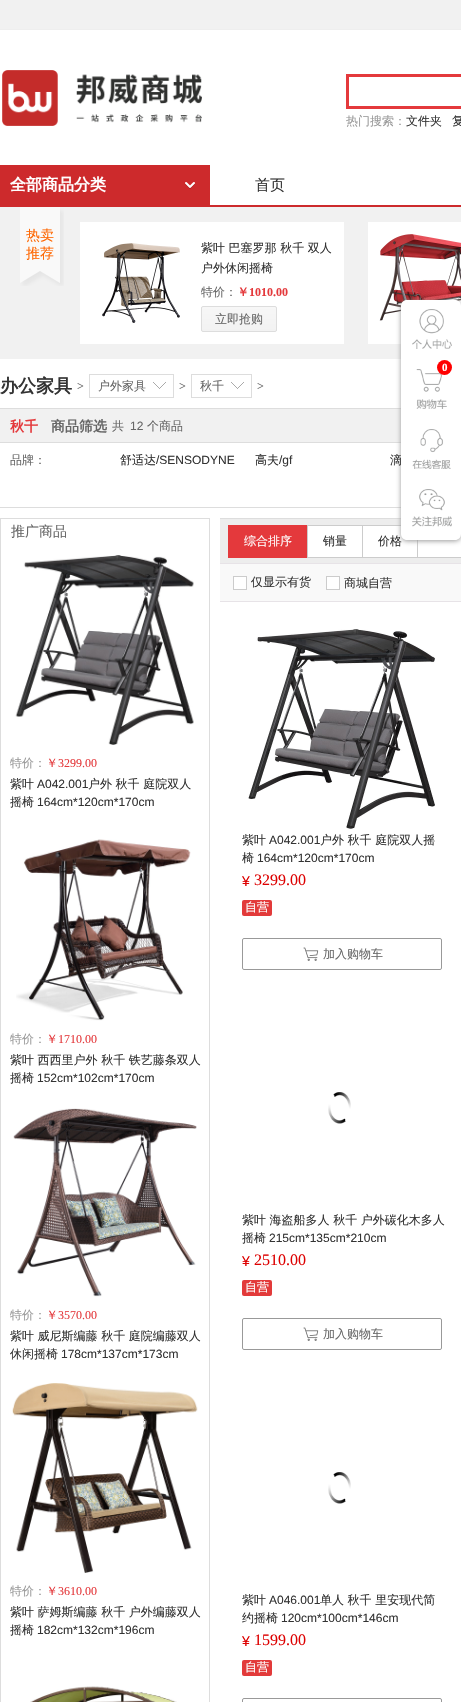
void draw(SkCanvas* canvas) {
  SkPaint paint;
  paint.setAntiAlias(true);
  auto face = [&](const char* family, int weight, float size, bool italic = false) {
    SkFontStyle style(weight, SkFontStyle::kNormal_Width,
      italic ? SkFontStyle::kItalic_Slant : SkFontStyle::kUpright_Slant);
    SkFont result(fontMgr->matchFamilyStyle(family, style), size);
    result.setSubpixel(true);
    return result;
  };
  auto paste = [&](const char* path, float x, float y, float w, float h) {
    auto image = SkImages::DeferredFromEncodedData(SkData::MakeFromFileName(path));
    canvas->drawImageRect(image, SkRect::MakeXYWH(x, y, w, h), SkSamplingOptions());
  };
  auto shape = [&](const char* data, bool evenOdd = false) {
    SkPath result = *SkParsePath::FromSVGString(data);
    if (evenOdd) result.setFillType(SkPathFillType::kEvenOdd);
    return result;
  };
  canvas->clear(0xffffffff);
  {
    const struct { float x, y, w, h; SkColor color; } items[] = {
      {0, 0, 461, 29, 0xfff1f1f1},
      {0, 29, 461, 1, 0xffeeeeee},
      {0, 205, 461, 2, 0xffcd2a2c},
    };
    for (auto [x, y, w, h, color] : items) {
      paint.setColor(color);
      canvas->drawRect(SkRect::MakeXYWH(x, y, w, h), paint);
    }
  }
  paste("img/1.png", 2, 70, 200, 56);
  paint.setStroke(true);
  paint.setStrokeWidth(3);
  paint.setColor(0xffe4393c);
  canvas->drawRect(SkRect::MakeXYWH(347.5f, 75.5f, 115, 32), paint);
  paint.setStroke(false);
  paint.setColor(0xffcd2a2c);
  canvas->drawRect(SkRect::MakeXYWH(0, 165, 210, 40), paint);
  paste("img/2.png", 185, 182, 10, 7);
  paint.setColor(0xfff1f1f1);
  canvas->drawRect(SkRect::MakeXYWH(0, 207, 461, 152), paint);
  paint.setColor(0xffffffff);
  canvas->drawRect(SkRect::MakeXYWH(368, 222, 93, 122), paint);
  paste("img/9.png", 379, 234, 82, 99);
  {
    const struct { float x, y, w, h; SkColor color; } items[] = {
      {0, 408, 401, 1, 0xffdddddd},
      {0, 409, 401, 33, 0xfff1f1f1},
      {0, 442, 401, 1, 0xffdddddd},
      {0, 507, 401, 1, 0xffdddddd},
      {220, 518, 181, 1, 0xffdddddd},
      {220, 519, 241, 44, 0xffededed},
    };
    for (auto [x, y, w, h, color] : items) {
      paint.setColor(color);
      canvas->drawRect(SkRect::MakeXYWH(x, y, w, h), paint);
    }
  }
  paint.setColor(0xffffffff);
  canvas->drawRect(SkRect::MakeXYWH(307.5f, 525.5f, 55, 32), paint);
  paint.setStroke(true);
  paint.setStrokeWidth(1);
  paint.setColor(0xffcccccc);
  canvas->drawRect(SkRect::MakeXYWH(307.5f, 525.5f, 55, 32), paint);
  paint.setStroke(false);
  paint.setColor(0xffffffff);
  canvas->drawRect(SkRect::MakeXYWH(362.5f, 525.5f, 55, 32), paint);
  paint.setStroke(true);
  paint.setColor(0xffcccccc);
  canvas->drawRect(SkRect::MakeXYWH(362.5f, 525.5f, 55, 32), paint);
  paint.setStroke(false);
  paint.setColor(0xffffffff);
  canvas->drawRect(SkRect::MakeXYWH(418, 534, 43, 23), paint);
  paint.setStroke(true);
  paint.setColor(0xffcccccc);
  canvas->drawRect(SkRect::MakeXYWH(417.5f, 525.5f, 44, 32), paint);
  paint.setStroke(false);
  paint.setColor(0xff999999);
  paint.setMaskFilter(SkMaskFilter::MakeBlur(kNormal_SkBlurStyle, 2.5f));
  canvas->drawRoundRect(SkRect::MakeXYWH(401, 301, 60, 240), 6, 6, paint);
  paint.setMaskFilter(nullptr);
  paint.setColor(0xffffffff);
  canvas->drawPath(shape("M407 300H455C458.5 300 461 302.5 461 306V360H401V306C401 302.5 403.5 300 407 300Z"), paint);
  paste("img/3.png", 412, 309, 40, 40);
  paste("img/7.png", 20, 207, 44, 79);
  canvas->drawRect(SkRect::MakeXYWH(80, 222, 264, 122), paint);
  paste("img/8.png", 102, 243, 78, 80);
  canvas->save();
  canvas->clipPath(shape("M203 306H275C276 306 277 307 277 308V330C277 331 276 332 275 332H203C202 332 201 331 201 330V308C201 307 202 306 203 306Z"), true);
  {
    const SkColor colors[] = {0xfff7f7f7, 0xfff2f2f2};
    const float stops[] = {0, 1};
    const SkPoint ends[] = {{239, 307}, {239, 331}};
    paint.setShader(SkGradientShader::MakeLinear(ends, colors, stops, 2, SkTileMode::kClamp));
    paint.setAlpha(255);
  }
  canvas->drawRect(SkRect::MakeXYWH(201, 307, 76, 24), paint);
  canvas->restore();
  paint.setStroke(true);
  paint.setShader(nullptr);
  paint.setColor(0xffdddddd);
  canvas->drawRoundRect(SkRect::MakeXYWH(201.5f, 306.5f, 75, 25), 1.5f, 1.5f, paint);
  canvas->drawRect(SkRect::MakeXYWH(89.5f, 374.5f, 84, 23), paint);
  paste("img/10.png", 153, 382, 13, 7);
  canvas->drawRect(SkRect::MakeXYWH(191.5f, 374.5f, 60, 23), paint);
  paste("img/10.png", 231, 382, 13, 7);
  canvas->drawRect(SkRect::MakeXYWH(0.5f, 518.5f, 209, 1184), paint);
  paste("img/11.png", 15, 555, 179, 190);
  paste("img/12.png", 16, 839, 175, 182);
  paste("img/13.png", 13, 1108, 184, 189);
  paste("img/14.png", 12, 1383, 186, 190);
  paste("img/15.png", 30, 1686, 147, 16);
  paint.setStroke(false);
  {
    const struct { float x, y, w, h; SkColor color; } items[] = {
      {220, 563, 241, 1, 0xffe7e3e7},
      {228, 525, 79, 33, 0xffe4393c},
      {220, 564, 241, 37, 0xfff9f9f9},
      {220, 601, 241, 1, 0xffe7e3e7},
    };
    for (auto [x, y, w, h, color] : items) {
      paint.setColor(color);
      canvas->drawRect(SkRect::MakeXYWH(x, y, w, h), paint);
    }
  }
  paint.setColor(0xffffffff);
  canvas->drawRect(SkRect::MakeXYWH(233.5f, 576.5f, 13, 13), paint);
  paint.setStroke(true);
  paint.setColor(0xffcccccc);
  canvas->drawRect(SkRect::MakeXYWH(233.5f, 576.5f, 13, 13), paint);
  paint.setStroke(false);
  paint.setColor(0xffffffff);
  canvas->drawRect(SkRect::MakeXYWH(326.5f, 576.5f, 13, 13), paint);
  paint.setStroke(true);
  paint.setColor(0xffcccccc);
  canvas->drawRect(SkRect::MakeXYWH(326.5f, 576.5f, 13, 13), paint);
  paste("img/16.png", 248, 629, 187, 200);
  paint.setStroke(false);
  paint.setColor(0xffe23a3a);
  canvas->drawRoundRect(SkRect::MakeXYWH(242, 900, 30, 16), 2, 2, paint);
  paint.setStroke(true);
  paint.setColor(0xff999999);
  canvas->drawRoundRect(SkRect::MakeXYWH(242.5f, 938.5f, 199, 31), 1.5f, 1.5f, paint);
  paste("img/17.png", 303, 947, 16, 14);
  paste("img/18.png", 328, 1092, 23, 32);
  paint.setStroke(false);
  paint.setColor(0xffe23a3a);
  canvas->drawRoundRect(SkRect::MakeXYWH(242, 1280, 30, 16), 2, 2, paint);
  paint.setStroke(true);
  paint.setColor(0xff999999);
  canvas->drawRoundRect(SkRect::MakeXYWH(242.5f, 1318.5f, 199, 31), 1.5f, 1.5f, paint);
  paste("img/17.png", 303, 1327, 16, 14);
  paste("img/18.png", 328, 1472, 23, 32);
  paint.setStroke(false);
  paint.setColor(0xffe23a3a);
  canvas->drawRoundRect(SkRect::MakeXYWH(242, 1660, 30, 16), 2, 2, paint);
  paint.setStroke(true);
  paint.setColor(0xff999999);
  canvas->drawRoundRect(SkRect::MakeXYWH(242.5f, 1698.5f, 199, 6), 1.5f, 1.5f, paint);
  auto f0 = face("WenQuanYi Zen Hei", 500, 12);
  paint.setStroke(false);
  canvas->drawString("热门搜索：", 346, 125, f0, paint);
  paint.setColor(0xff333333);
  canvas->drawString("文件夹", 406, 125, f0, paint);
  canvas->drawString("复", 452, 125, f0, paint);
  auto f1 = face("WenQuanYi Zen Hei", 700, 16);
  paint.setColor(0xffffffff);
  canvas->drawString("全部商品分类", 10, 190, f1, paint);
  auto f2 = face("WenQuanYi Zen Hei", 500, 15);
  paint.setColor(0xff333333);
  canvas->drawString("首页", 255, 190, f2, paint);
  auto f3 = face("WenQuanYi Zen Hei", 500, 14);
  paint.setColor(0xffff6600);
  canvas->drawString("热卖", 26, 240, f3, paint);
  canvas->drawString("推荐", 26, 258, f3, paint);
  paint.setColor(0xff333333);
  canvas->drawString("紫叶 巴塞罗那 秋千 双人", 201, 252, f0, paint);
  canvas->drawString("户外休闲摇椅", 201, 272, f0, paint);
  paint.setColor(0xff666666);
  canvas->drawString("特价：", 201, 296, f0, paint);
  auto f4 = face("WenQuanYi Zen Hei", 700, 12);
  paint.setColor(0xffe4393c);
  canvas->drawString("￥", 237, 296, f4, paint);
  auto f5 = face("Liberation Serif", 700, 12);
  canvas->drawString("1010.00", 249, 296, f5, paint);
  paint.setColor(0xff666666);
  canvas->drawString("立即抢购", 215, 323, f0, paint);
  auto f6 = face("WenQuanYi Zen Hei", 700, 18);
  paint.setColor(0xff333333);
  canvas->drawString("办公家具", 0, 392, f6, paint);
  auto f7 = face("Liberation Serif", 400, 12);
  paint.setColor(0xff666666);
  canvas->drawString(">", 77, 390, f7, paint);
  canvas->drawString("户外家具", 98, 390, f0, paint);
  canvas->drawString(">", 179, 390, f7, paint);
  canvas->drawString("秋千", 200, 390, f0, paint);
  canvas->drawString(">", 257, 390, f7, paint);
  auto f8 = face("WenQuanYi Zen Hei", 700, 14);
  paint.setColor(0xffe4393c);
  canvas->drawString("秋千", 10, 431, f8, paint);
  paint.setColor(0xff666666);
  canvas->drawString("商品筛选", 51, 431, f8, paint);
  canvas->drawString("共", 112, 430, f0, paint);
  auto f9 = face("Liberation Sans", 400, 12);
  canvas->drawString("12", 130, 430, f9, paint);
  canvas->drawString("个商品", 147, 430, f0, paint);
  canvas->drawString("品牌：", 10, 464, f0, paint);
  paint.setColor(0xff333333);
  canvas->drawString("舒适达", 120, 464, f0, paint);
  canvas->drawString("/SENSODYNE", 156, 464, f9, paint);
  canvas->drawString("高夫", 255, 464, f0, paint);
  canvas->drawString("/gf", 279, 464, f9, paint);
  canvas->drawString("滴", 390, 464, f0, paint);
  paint.setColor(0xffffffff);
  canvas->drawRect(SkRect::MakeXYWH(401, 360, 60, 120), paint);
  paste("img/4.png", 416, 369, 31, 40);
  paint.setColor(0xffff0000);
  canvas->drawCircle(444.5f, 367.5f, 7.5f, paint);
  auto f10 = face("Liberation Serif", 700, 11);
  paint.setColor(0xffffffff);
  canvas->drawString("0", 442, 371, f10, paint);
  paste("img/5.png", 412, 429, 39, 40);
  paint.setColor(0xff666666);
  canvas->drawString("推广商品", 11, 536, f3, paint);
  paint.setColor(0xff999999);
  canvas->drawString("特价：", 10, 767, f0, paint);
  paint.setColor(0xffe4393c);
  canvas->drawString("￥", 46, 767, f0, paint);
  canvas->drawString("3299.00", 58, 767, f7, paint);
  paint.setColor(0xff333333);
  canvas->drawString("紫叶", 10, 788, f0, paint);
  canvas->drawString("A042.001", 37, 788, f9, paint);
  canvas->drawString("户外 秋千 庭院双人", 88, 788, f0, paint);
  canvas->drawString("摇椅", 10, 806, f0, paint);
  canvas->drawString("164cm*120cm*170cm", 37, 806, f9, paint);
  paint.setColor(0xff999999);
  canvas->drawString("特价：", 10, 1043, f0, paint);
  paint.setColor(0xffe4393c);
  canvas->drawString("￥", 46, 1043, f0, paint);
  canvas->drawString("1710.00", 58, 1043, f7, paint);
  paint.setColor(0xff333333);
  canvas->drawString("紫叶 西西里户外 秋千 铁艺藤条双人", 10, 1064, f0, paint);
  canvas->drawString("摇椅", 10, 1082, f0, paint);
  canvas->drawString("152cm*102cm*170cm", 37, 1082, f9, paint);
  paint.setColor(0xff999999);
  canvas->drawString("特价：", 10, 1319, f0, paint);
  paint.setColor(0xffe4393c);
  canvas->drawString("￥", 46, 1319, f0, paint);
  canvas->drawString("3570.00", 58, 1319, f7, paint);
  paint.setColor(0xff333333);
  canvas->drawString("紫叶 威尼斯编藤 秋千 庭院编藤双人", 10, 1340, f0, paint);
  canvas->drawString("休闲摇椅", 10, 1358, f0, paint);
  canvas->drawString("178cm*137cm*173cm", 61, 1358, f9, paint);
  paint.setColor(0xff999999);
  canvas->drawString("特价：", 10, 1595, f0, paint);
  paint.setColor(0xffe4393c);
  canvas->drawString("￥", 46, 1595, f0, paint);
  canvas->drawString("3610.00", 58, 1595, f7, paint);
  paint.setColor(0xff333333);
  canvas->drawString("紫叶 萨姆斯编藤 秋千 户外编藤双人", 10, 1616, f0, paint);
  canvas->drawString("摇椅", 10, 1634, f0, paint);
  canvas->drawString("182cm*132cm*196cm", 37, 1634, f9, paint);
  paint.setColor(0xffffffff);
  canvas->drawString("综合排序", 244, 545, f0, paint);
  paint.setColor(0xff333333);
  canvas->drawString("销量", 323, 545, f0, paint);
  canvas->drawString("价格", 378, 545, f0, paint);
  paint.setColor(0xffffffff);
  canvas->drawPath(shape("M401 480H461V534C461 537.5 458.5 540 455 540H407C403.5 540 401 537.5 401 534Z"), paint);
  paste("img/6.png", 412, 489, 40, 38);
  paint.setColor(0xff333333);
  {
    const struct { const char* s; float x, y; } items[] = {
      {"仅显示有货", 251, 586},
      {"商城自营", 344, 587},
      {"紫叶", 242, 844},
    };
    for (auto [s, x, y] : items) {
      canvas->drawString(s, x, y, f0, paint);
    }
  }
  canvas->drawString("A042.001", 269, 844, f9, paint);
  canvas->drawString("户外 秋千 庭院双人摇", 320, 844, f0, paint);
  canvas->drawString("椅", 242, 862, f0, paint);
  canvas->drawString("164cm*120cm*170cm", 257, 862, f9, paint);
  auto f11 = face("Liberation Sans", 400, 14);
  paint.setColor(0xffdd0000);
  canvas->drawString("¥", 242, 886, f11, paint);
  auto f12 = face("Liberation Serif", 400, 16);
  canvas->drawString("3299.00", 254, 885, f12, paint);
  paint.setColor(0xffffffff);
  canvas->drawString("自营", 245, 911, f0, paint);
  paint.setColor(0xff666666);
  canvas->drawString("加入购物车", 323, 958, f0, paint);
  paint.setColor(0xff333333);
  canvas->drawString("紫叶 海盗船多人 秋千 户外碳化木多人", 242, 1224, f0, paint);
  canvas->drawString("摇椅", 242, 1242, f0, paint);
  canvas->drawString("215cm*135cm*210cm", 269, 1242, f9, paint);
  paint.setColor(0xffdd0000);
  canvas->drawString("¥", 242, 1266, f11, paint);
  canvas->drawString("2510.00", 254, 1265, f12, paint);
  paint.setColor(0xffffffff);
  canvas->drawString("自营", 245, 1291, f0, paint);
  paint.setColor(0xff666666);
  canvas->drawString("加入购物车", 323, 1338, f0, paint);
  paint.setColor(0xff333333);
  canvas->drawString("紫叶", 242, 1604, f0, paint);
  canvas->drawString("A046.001", 269, 1604, f9, paint);
  canvas->drawString("单人 秋千 里安现代简", 320, 1604, f0, paint);
  canvas->drawString("约摇椅", 242, 1622, f0, paint);
  canvas->drawString("120cm*100cm*146cm", 281, 1622, f9, paint);
  paint.setColor(0xffdd0000);
  canvas->drawString("¥", 242, 1646, f11, paint);
  canvas->drawString("1599.00", 254, 1645, f12, paint);
  paint.setColor(0xffffffff);
  canvas->drawString("自营", 245, 1671, f0, paint);
}
